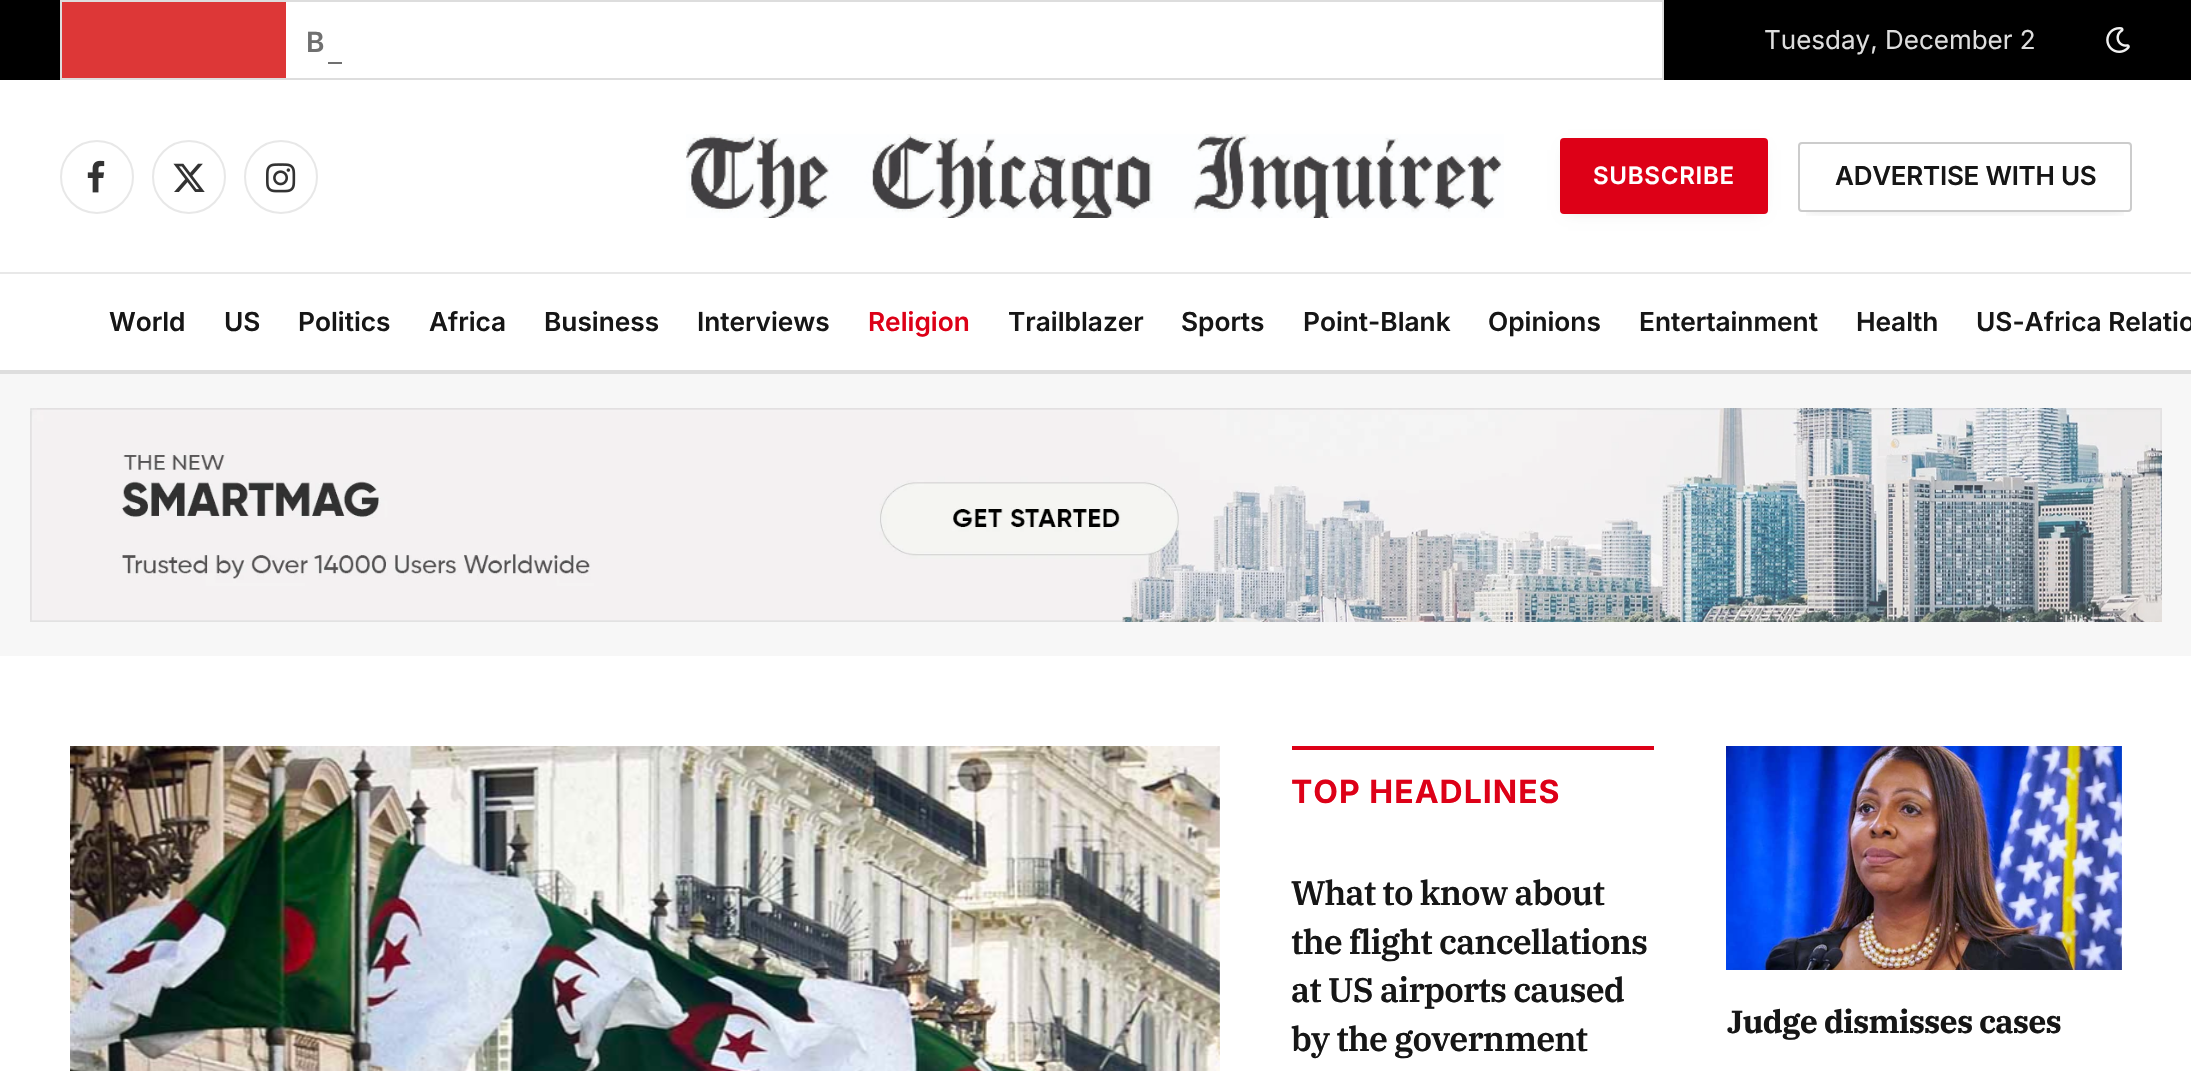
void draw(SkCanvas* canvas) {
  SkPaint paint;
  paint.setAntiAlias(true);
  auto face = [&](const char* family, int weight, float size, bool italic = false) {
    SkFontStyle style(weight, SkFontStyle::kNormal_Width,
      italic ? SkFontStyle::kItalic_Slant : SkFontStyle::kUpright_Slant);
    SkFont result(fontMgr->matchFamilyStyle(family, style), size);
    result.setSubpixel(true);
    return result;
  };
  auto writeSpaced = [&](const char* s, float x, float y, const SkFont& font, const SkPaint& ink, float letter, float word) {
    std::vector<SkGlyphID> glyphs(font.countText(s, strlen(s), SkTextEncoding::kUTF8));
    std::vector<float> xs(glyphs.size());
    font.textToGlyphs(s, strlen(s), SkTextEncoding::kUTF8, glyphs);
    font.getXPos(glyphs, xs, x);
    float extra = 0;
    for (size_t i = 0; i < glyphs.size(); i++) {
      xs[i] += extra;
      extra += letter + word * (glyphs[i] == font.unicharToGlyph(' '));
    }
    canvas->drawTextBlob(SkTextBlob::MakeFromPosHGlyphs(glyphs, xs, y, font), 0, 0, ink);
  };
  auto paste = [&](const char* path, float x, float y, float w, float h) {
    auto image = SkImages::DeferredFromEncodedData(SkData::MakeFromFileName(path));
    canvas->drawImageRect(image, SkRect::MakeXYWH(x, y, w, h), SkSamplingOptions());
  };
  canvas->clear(0xffffffff);
  paint.setColor(0xff000000);
  canvas->drawRect(SkRect::MakeXYWH(0, 0, 2191, 80), paint);
  paint.setColor(0xffffffff);
  canvas->drawRect(SkRect::MakeXYWH(286, 2, 1376, 76), paint);
  paint.setStroke(true);
  paint.setStrokeWidth(2);
  paint.setColor(0xffdddddd);
  canvas->drawRect(SkRect::MakeXYWH(61, 1, 1602, 78), paint);
  paint.setStroke(false);
  paint.setColor(0xffdd3737);
  canvas->drawRect(SkRect::MakeXYWH(62, 2, 224, 76), paint);
  paint.setColor(0xff707070);
  canvas->drawRect(SkRect::MakeXYWH(328, 62, 14, 2), paint);
  paste("img/1.png", 2106, 27, 24, 26);
  paint.setStroke(true);
  paint.setColor(0xffe8e8e8);
  canvas->drawCircle(97, 177, 36, paint);
  paste("img/2.png", 87, 160, 18, 33);
  canvas->drawCircle(189, 177, 36, paint);
  paste("img/3.png", 173, 163, 32, 29);
  canvas->drawCircle(281, 177, 36, paint);
  paste("img/4.png", 266, 163, 30, 30);
  paste("img/5.png", 686, 134, 818, 84);
  paint.setStroke(false);
  paint.setColor(0x29000000);
  paint.setMaskFilter(SkMaskFilter::MakeBlur(kNormal_SkBlurStyle, 7));
  canvas->drawRect(SkRect::MakeXYWH(1568, 150, 192, 60), paint);
  paint.setMaskFilter(nullptr);
  paint.setColor(0xffdd0017);
  canvas->drawRoundRect(SkRect::MakeXYWH(1560, 138, 208, 76), 4, 4, paint);
  canvas->save();
  canvas->clipRect(SkRect::MakeXYWH(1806, 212, 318, 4));
  paint.setColor(0x29000000);
  paint.setMaskFilter(SkMaskFilter::MakeBlur(kNormal_SkBlurStyle, 7));
  canvas->drawRect(SkRect::MakeXYWH(1806, 154, 318, 54), paint);
  paint.setMaskFilter(nullptr);
  canvas->restore();
  paint.setStroke(true);
  paint.setColor(0xffcccccc);
  canvas->drawRoundRect(SkRect::MakeXYWH(1799, 143, 332, 68), 3, 3, paint);
  paint.setStroke(false);
  {
    const struct { float x, y, w, h; SkColor color; } items[] = {
      {0, 272, 2191, 2, 0xffe8e8e8},
      {0, 370, 2191, 4, 0xffdedede},
      {0, 374, 2191, 282, 0xfff7f7f7},
    };
    for (auto [x, y, w, h, color] : items) {
      paint.setColor(color);
      canvas->drawRect(SkRect::MakeXYWH(x, y, w, h), paint);
    }
  }
  paste("img/6.png", 30, 408, 2132, 214);
  paste("img/7.png", 70, 746, 1150, 325);
  paint.setColor(0xffdd0017);
  canvas->drawRect(SkRect::MakeXYWH(1292, 746, 362, 4), paint);
  paste("img/8.png", 1726, 746, 396, 224);
  auto f0 = face("Inter", 600, 28);
  paint.setColor(0xff707070);
  canvas->drawString("B", 306, 52, f0, paint);
  auto f1 = face("Inter", 400, 26);
  paint.setColor(0xffdddddd);
  canvas->drawString("Tuesday, December 2", 1764, 49, f1, paint);
  auto f2 = face("Inter", 600, 24);
  paint.setColor(0xffffffff);
  writeSpaced("SUBSCRIBE", 1593, 184, f2, paint, 0.75f, 0);
  auto f3 = face("Inter", 600, 26);
  paint.setColor(0xff161616);
  writeSpaced("ADVERTISE WITH US", 1835, 185, f3, paint, -0.25f, 0);
  auto f4 = face("Inter", 600, 26.25f);
  {
    const struct { const char* s; float x, y; } items[] = {
      {"World", 109, 331},
      {"US", 224, 331},
      {"Politics", 298, 331},
      {"Africa", 429, 331},
      {"Business", 544, 331},
      {"Interviews", 697, 331},
    };
    for (auto [s, x, y] : items) {
      canvas->drawString(s, x, y, f4, paint);
    }
  }
  paint.setColor(0xffdd0017);
  canvas->drawString("Religion", 868, 331, f4, paint);
  paint.setColor(0xff161616);
  {
    const struct { const char* s; float x, y; } items[] = {
      {"Trailblazer", 1008, 331},
      {"Sports", 1181, 331},
      {"Point-Blank", 1303, 331},
      {"Opinions", 1488, 331},
      {"Entertainment", 1639, 331},
      {"Health", 1856, 331},
      {"US-Africa Relatio", 1976, 331},
    };
    for (auto [s, x, y] : items) {
      canvas->drawString(s, x, y, f4, paint);
    }
  }
  auto f5 = face("Inter", 700, 32);
  paint.setColor(0xffdd0017);
  writeSpaced("TOP HEADLINES", 1291, 803, f5, paint, 1, 0);
  auto f6 = face("IBM Plex Serif", 600, 34);
  paint.setColor(0xff161616);
  {
    const struct { const char* s; float x, y; } items[] = {
      {"What to know about", 1291, 905},
      {"the flight cancellations", 1291, 954},
      {"at US airports caused", 1291, 1002},
      {"by the government", 1291, 1051},
    };
    for (auto [s, x, y] : items) {
      writeSpaced(s, x, y, f6, paint, -0.85f, 0);
    }
  }
  auto f7 = face("IBM Plex Serif", 700, 32);
  writeSpaced("Judge dismisses cases", 1727, 1033, f7, paint, -0.8f, 0);
}
